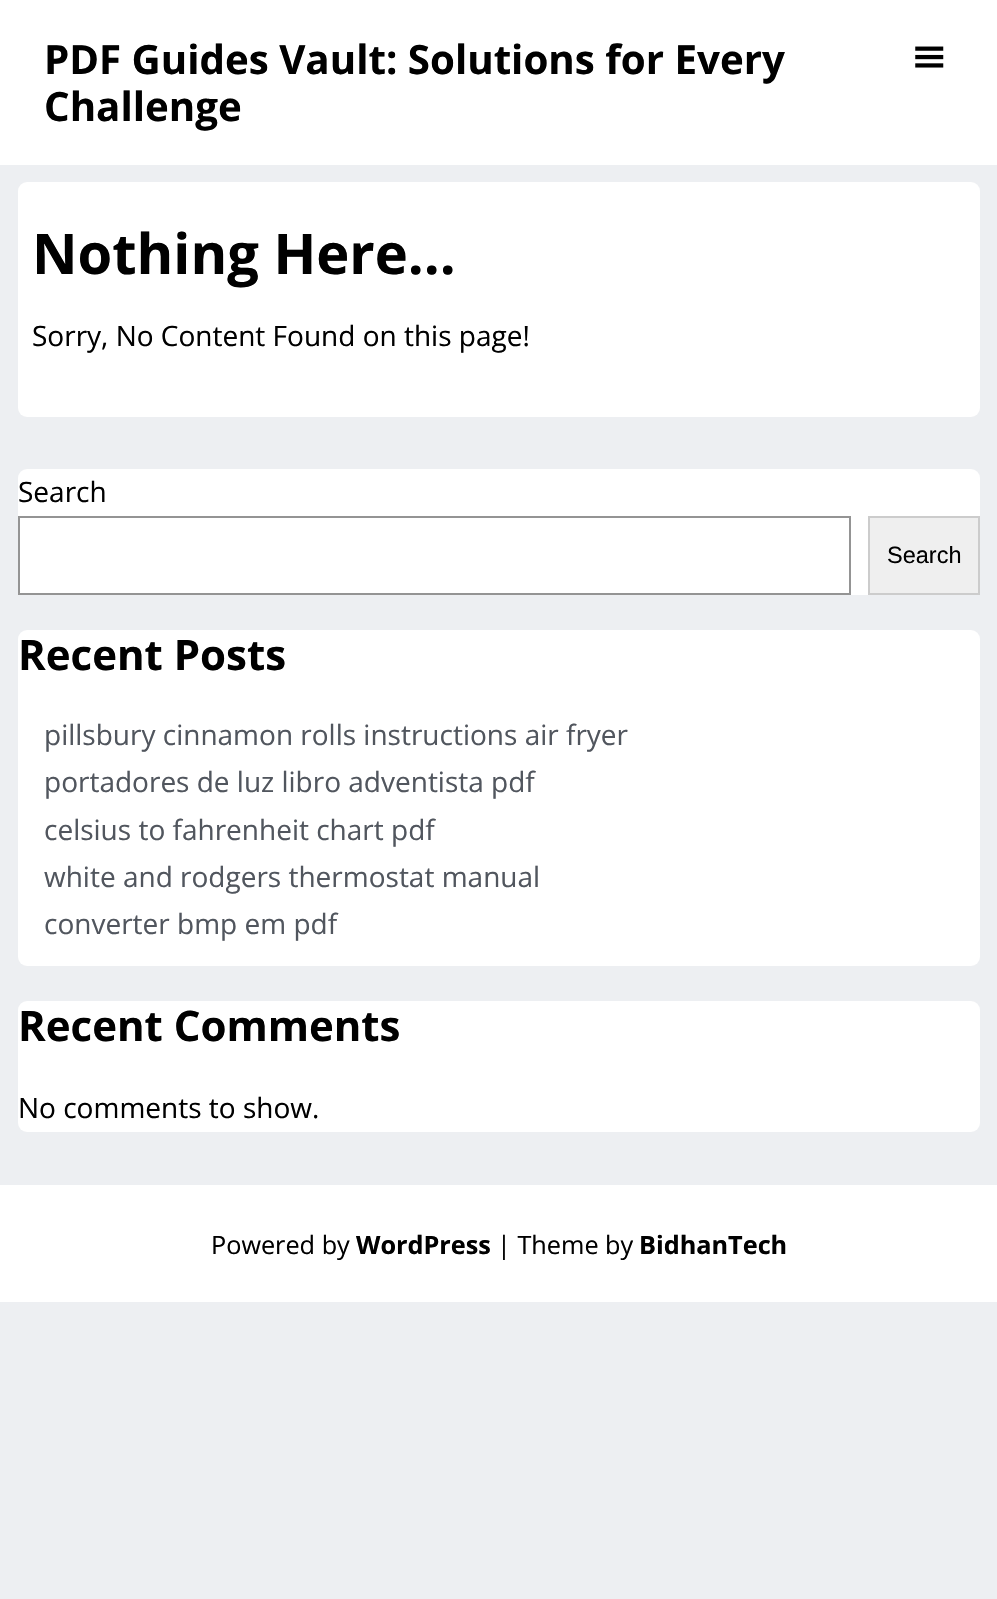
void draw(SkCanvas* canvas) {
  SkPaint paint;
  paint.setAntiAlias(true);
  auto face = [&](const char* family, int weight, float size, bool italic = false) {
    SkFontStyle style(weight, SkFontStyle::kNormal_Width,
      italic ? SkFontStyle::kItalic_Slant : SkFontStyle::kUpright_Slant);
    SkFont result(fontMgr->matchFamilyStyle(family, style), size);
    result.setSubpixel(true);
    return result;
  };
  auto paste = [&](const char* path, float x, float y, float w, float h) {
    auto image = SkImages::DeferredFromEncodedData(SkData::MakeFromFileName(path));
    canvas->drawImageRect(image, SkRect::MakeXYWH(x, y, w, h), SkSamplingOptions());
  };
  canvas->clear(0xffedeff2);
  paint.setColor(0xffffffff);
  canvas->drawRect(SkRect::MakeXYWH(0, 0, 997, 165), paint);
  paste("img/1.png", 915, 46, 29, 22);
  canvas->drawRoundRect(SkRect::MakeXYWH(18, 182, 962, 235), 9, 9, paint);
  canvas->drawRoundRect(SkRect::MakeXYWH(18, 469, 962, 126), 9, 9, paint);
  canvas->drawRect(SkRect::MakeXYWH(20, 592, 1, 1), paint);
  paint.setStroke(true);
  paint.setStrokeWidth(2);
  paint.setColor(0xff949494);
  canvas->drawRect(SkRect::MakeXYWH(19, 517, 831, 77), paint);
  paint.setStroke(false);
  paint.setColor(0xffefefef);
  canvas->drawRect(SkRect::MakeXYWH(869, 517, 110, 77), paint);
  paint.setStroke(true);
  paint.setColor(0xffcccccc);
  canvas->drawRect(SkRect::MakeXYWH(869, 517, 110, 77), paint);
  paint.setStroke(false);
  paint.setColor(0xffffffff);
  canvas->drawRoundRect(SkRect::MakeXYWH(18, 630, 962, 336), 9, 9, paint);
  canvas->drawRoundRect(SkRect::MakeXYWH(18, 1001, 962, 131), 9, 9, paint);
  canvas->drawRect(SkRect::MakeXYWH(0, 1185, 997, 117), paint);
  auto f0 = face("Open Sans", 700, 40.25f);
  paint.setColor(0xff000000);
  canvas->drawString("PDF Guides Vault: Solutions for Every", 44, 74, f0, paint);
  canvas->drawString("Challenge", 44, 121, f0, paint);
  auto f1 = face("Open Sans", 700, 56);
  canvas->drawString("Nothing Here...", 32, 274, f1, paint);
  auto f2 = face("Open Sans", 400, 28);
  canvas->drawString("Sorry, No Content Found on this page!", 32, 346, f2, paint);
  canvas->drawString("Search", 18, 502, f2, paint);
  auto f3 = face("Liberation Sans", 400, 23.5f);
  canvas->drawString("Search", 887, 563, f3, paint);
  auto f4 = face("Open Sans", 700, 42);
  canvas->drawString("Recent Posts", 18, 670, f4, paint);
  paint.setColor(0xff51565e);
  {
    const struct { const char* s; float x, y; } items[] = {
      {"pillsbury cinnamon rolls instructions air fryer", 44, 745},
      {"portadores de luz libro adventista pdf", 44, 792},
      {"celsius to fahrenheit chart pdf", 44, 840},
      {"white and rodgers thermostat manual", 44, 887},
      {"converter bmp em pdf", 44, 934},
    };
    for (auto [s, x, y] : items) {
      canvas->drawString(s, x, y, f2, paint);
    }
  }
  paint.setColor(0xff000000);
  canvas->drawString("Recent Comments", 18, 1041, f4, paint);
  canvas->drawString("No comments to show.", 18, 1118, f2, paint);
  auto f5 = face("Open Sans", 400, 25.25f);
  canvas->drawString("Powered by", 211, 1254, f5, paint);
  auto f6 = face("Open Sans", 700, 25.25f);
  canvas->drawString("WordPress", 356, 1254, f6, paint);
  canvas->drawString("| Theme by", 497, 1254, f5, paint);
  canvas->drawString("BidhanTech", 639, 1254, f6, paint);
}
